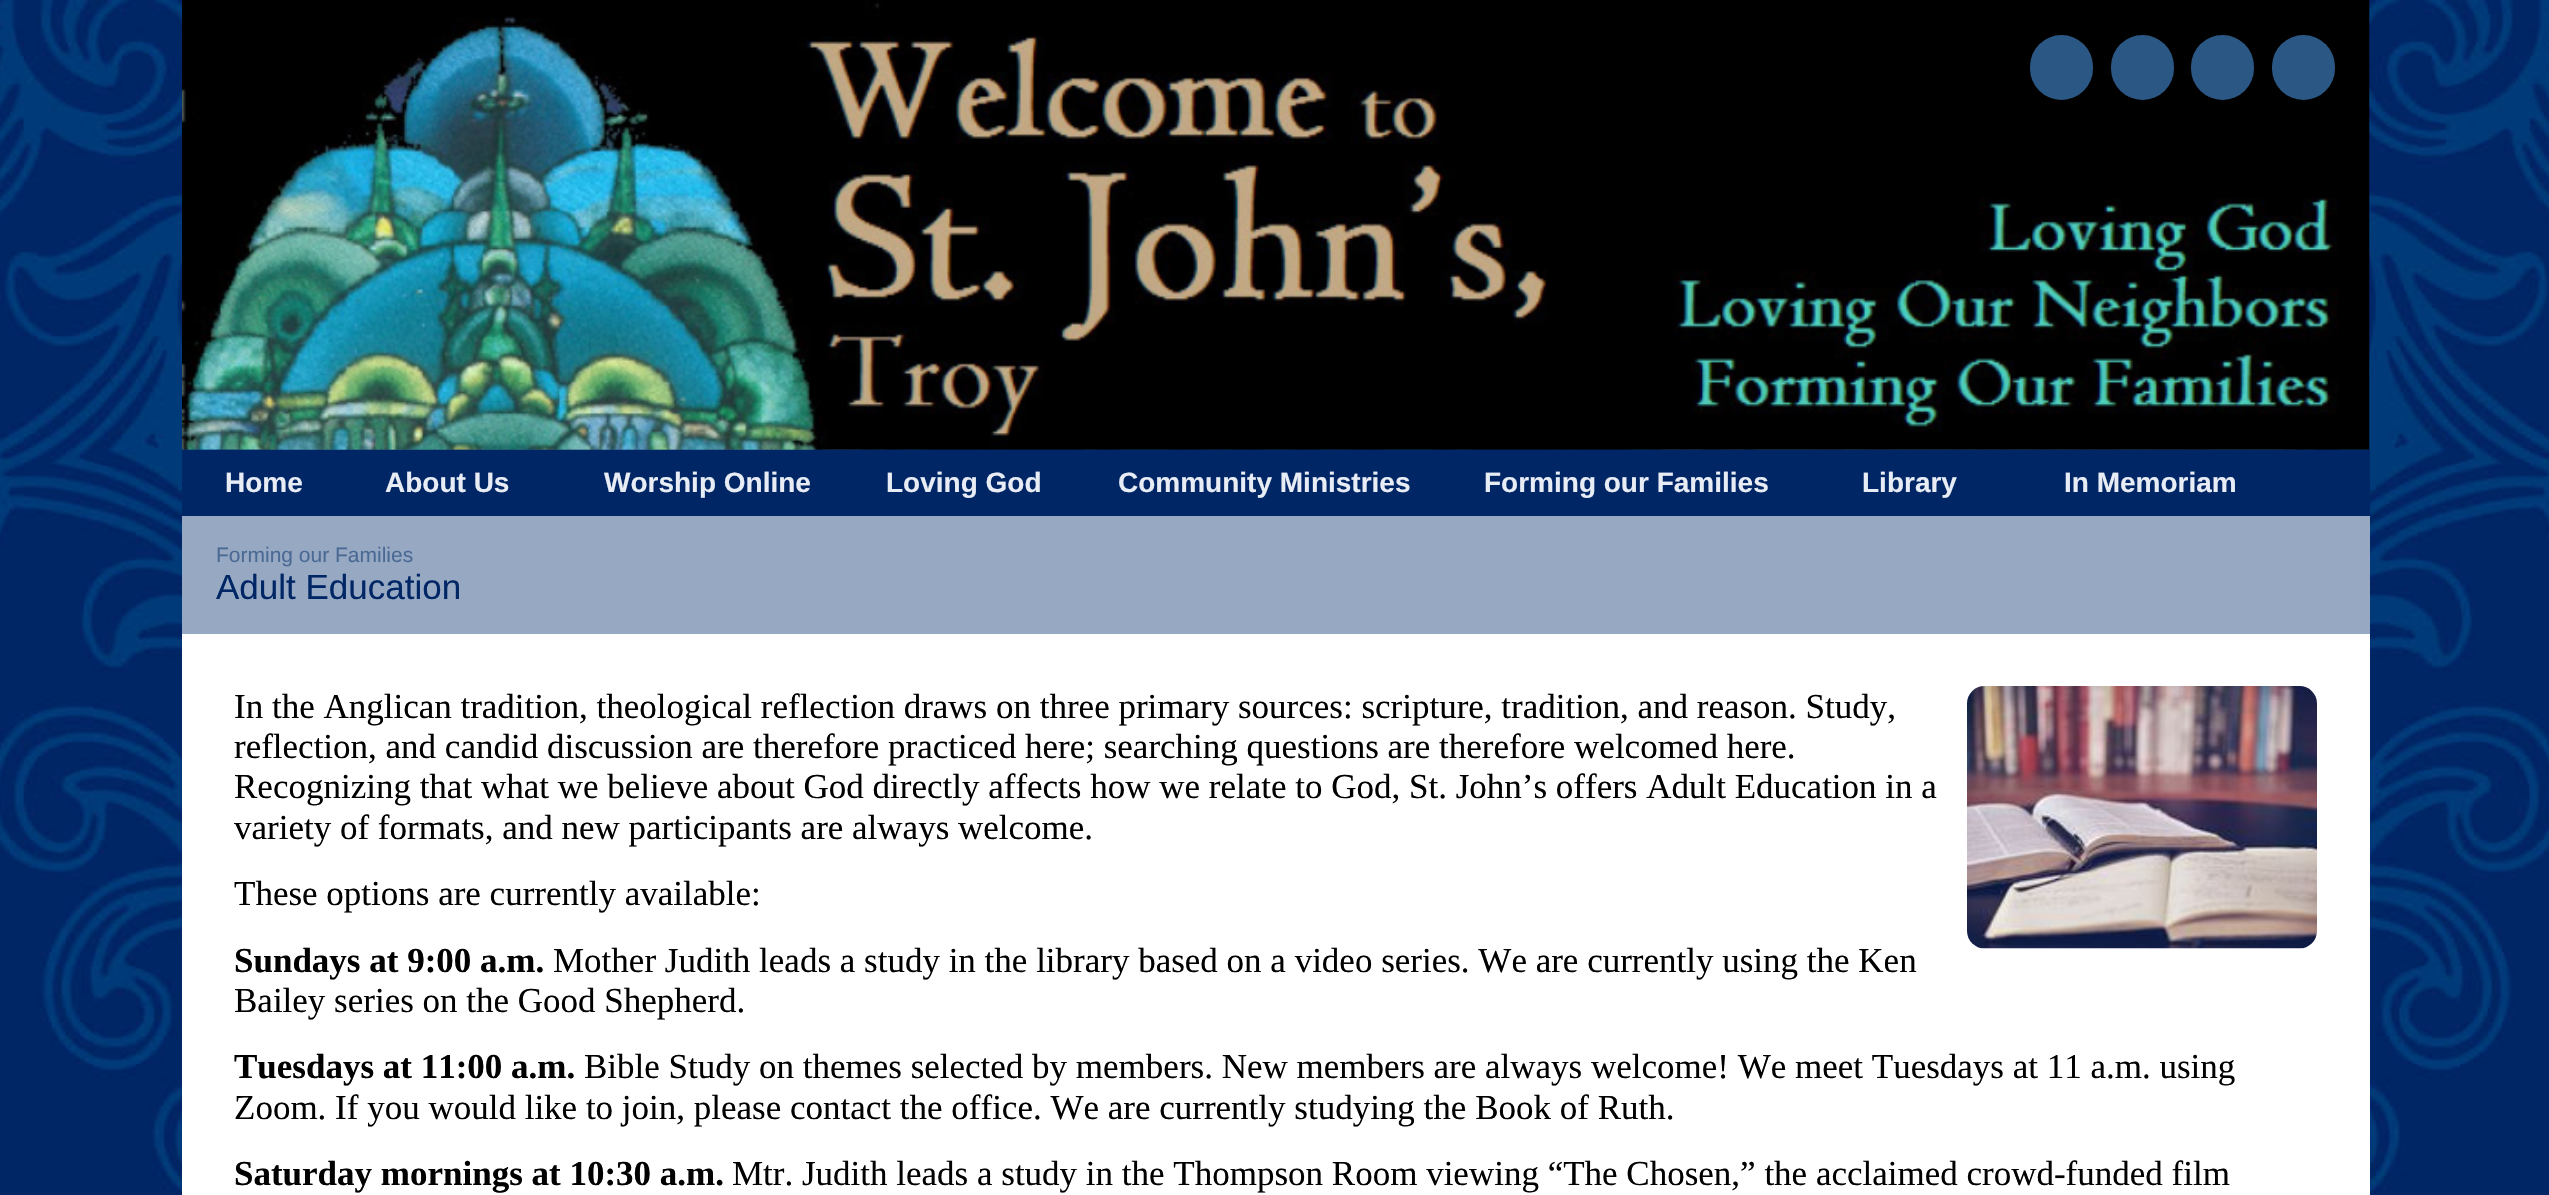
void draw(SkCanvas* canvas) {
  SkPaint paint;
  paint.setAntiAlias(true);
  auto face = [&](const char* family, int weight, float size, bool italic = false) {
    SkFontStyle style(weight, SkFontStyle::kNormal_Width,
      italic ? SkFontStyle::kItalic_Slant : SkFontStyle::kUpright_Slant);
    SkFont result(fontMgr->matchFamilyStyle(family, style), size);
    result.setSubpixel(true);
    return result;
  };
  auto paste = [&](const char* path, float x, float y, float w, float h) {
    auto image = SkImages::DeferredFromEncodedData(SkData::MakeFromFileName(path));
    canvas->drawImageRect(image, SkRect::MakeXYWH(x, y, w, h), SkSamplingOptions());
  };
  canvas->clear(0xffffffff);
  paste("img/1.png", 0, 0, 2549, 1195);
  paste("img/2.png", 182, 0, 2188, 450);
  paint.setColor(0xff2b5785);
  canvas->drawRoundRect(SkRect::MakeXYWH(2030, 35, 63, 65), 31.5f, 31.5f, paint);
  canvas->drawRoundRect(SkRect::MakeXYWH(2111, 35, 63, 65), 31.5f, 31.5f, paint);
  canvas->drawRoundRect(SkRect::MakeXYWH(2191, 35, 63, 65), 31.5f, 31.5f, paint);
  canvas->drawRoundRect(SkRect::MakeXYWH(2272, 35, 63, 65), 31.5f, 31.5f, paint);
  {
    const struct { float x, y, w, h; SkColor color; } items[] = {
      {182, 450, 2188, 66, 0xff002665},
      {182, 634, 2188, 561, 0xffffffff},
      {182, 516, 2188, 118, 0xff97a9c2},
    };
    for (auto [x, y, w, h, color] : items) {
      paint.setColor(color);
      canvas->drawRect(SkRect::MakeXYWH(x, y, w, h), paint);
    }
  }
  paste("img/3.png", 1967, 686, 350, 263);
  auto f0 = face("Liberation Sans", 700, 28);
  paint.setColor(0xffe7ecf5);
  {
    const struct { const char* s; float x, y; } items[] = {
      {"Home", 225, 492},
      {"About Us", 385, 492},
      {"Worship Online", 604, 492},
      {"Loving God", 886, 492},
      {"Community Ministries", 1118, 492},
      {"Forming our Families", 1484, 492},
      {"Library", 1862, 492},
      {"In Memoriam", 2064, 492},
    };
    for (auto [s, x, y] : items) {
      canvas->drawString(s, x, y, f0, paint);
    }
  }
  auto f1 = face("Liberation Sans", 400, 21);
  paint.setColor(0xff4a6995);
  canvas->drawString("Forming our Families", 216, 562, f1, paint);
  auto f2 = face("Liberation Sans", 400, 35);
  paint.setColor(0xff002665);
  canvas->drawString("Adult Education", 216, 599, f2, paint);
  auto f3 = face("Liberation Serif", 400, 35);
  paint.setColor(0xff000000);
  {
    const struct { const char* s; float x, y; } items[] = {
      {"In the Anglican tradition, theological reflection draws on three primary sources: scripture, tradition, and reason. Study,", 234, 718},
      {"reflection, and candid discussion are therefore practiced here; searching questions are therefore welcomed here.", 234, 758},
      {"Recognizing that what we believe about God directly affects how we relate to God, St. John’s offers Adult Education in a", 234, 798},
      {"variety of formats, and new participants are always welcome.", 234, 839},
      {"These options are currently available:", 234, 905},
    };
    for (auto [s, x, y] : items) {
      canvas->drawString(s, x, y, f3, paint);
    }
  }
  auto f4 = face("Liberation Serif", 700, 35);
  canvas->drawString("Sundays at 9:00 a.m.", 234, 972, f4, paint);
  canvas->drawString("Mother Judith leads a study in the library based on a video series. We are currently using the Ken", 553, 972, f3, paint);
  canvas->drawString("Bailey series on the Good Shepherd.", 234, 1012, f3, paint);
  canvas->drawString("Tuesdays at 11:00 a.m.", 234, 1078, f4, paint);
  canvas->drawString("Bible Study on themes selected by members. New members are always welcome! We meet Tuesdays at 11 a.m. using", 584, 1078, f3, paint);
  canvas->drawString("Zoom. If you would like to join, please contact the office. We are currently studying the Book of Ruth.", 234, 1119, f3, paint);
  canvas->drawString("Saturday mornings at 10:30 a.m.", 234, 1185, f4, paint);
  canvas->drawString("Mtr. Judith leads a study in the Thompson Room viewing “The Chosen,” the acclaimed crowd-funded film", 732, 1185, f3, paint);
}
